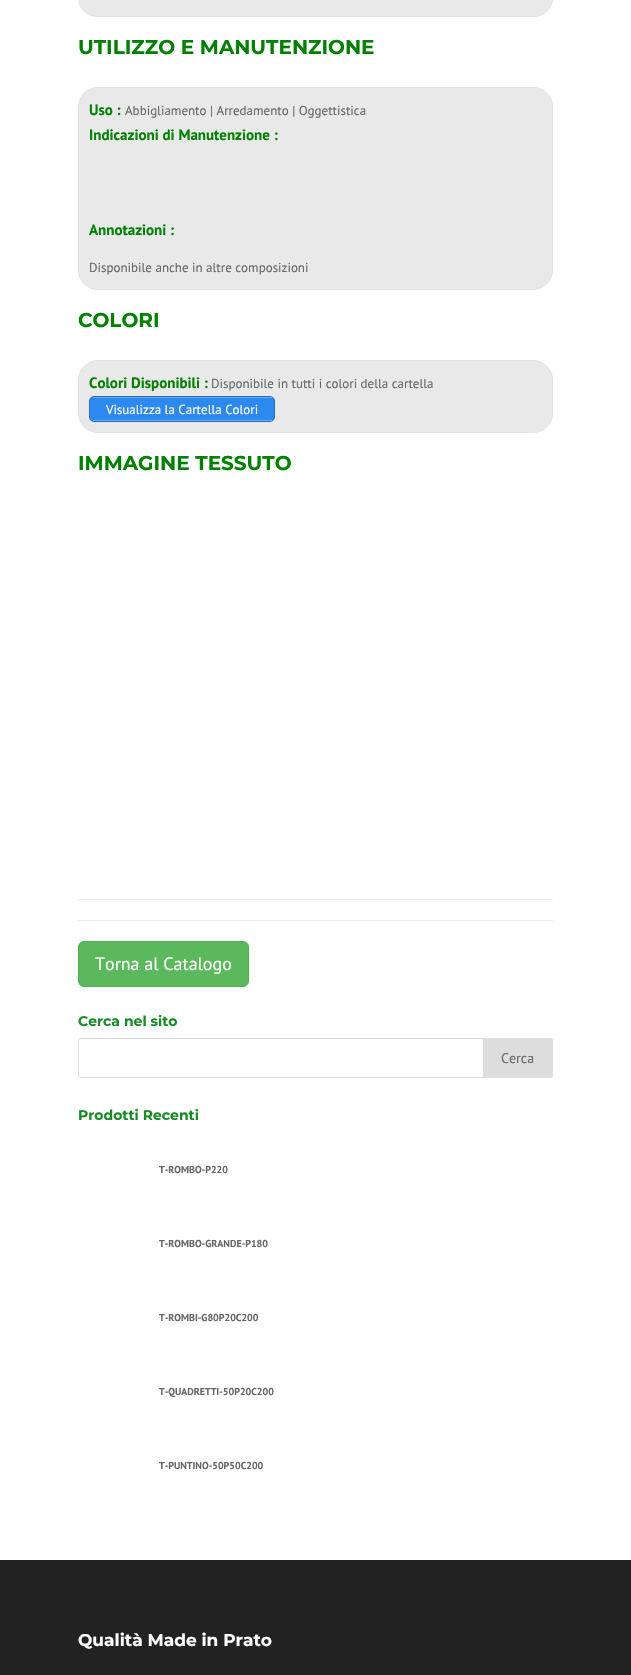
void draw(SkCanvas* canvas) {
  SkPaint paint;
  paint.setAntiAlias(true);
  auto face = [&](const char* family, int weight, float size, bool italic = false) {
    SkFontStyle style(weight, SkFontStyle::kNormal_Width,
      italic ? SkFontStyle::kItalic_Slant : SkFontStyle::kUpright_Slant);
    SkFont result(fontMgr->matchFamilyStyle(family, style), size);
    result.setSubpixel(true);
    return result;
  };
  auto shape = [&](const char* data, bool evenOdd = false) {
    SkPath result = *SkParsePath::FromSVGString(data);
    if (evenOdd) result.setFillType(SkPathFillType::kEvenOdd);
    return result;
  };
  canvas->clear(0xffffffff);
  paint.setColor(0xffe9e9e9);
  canvas->drawRoundRect(SkRect::MakeXYWH(78.5f, -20.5f, 474, 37), 19.5f, 19.5f, paint);
  paint.setStroke(true);
  paint.setStrokeWidth(1);
  paint.setColor(0xffe2e2e2);
  canvas->drawRoundRect(SkRect::MakeXYWH(78.5f, -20.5f, 474, 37), 19.5f, 19.5f, paint);
  paint.setStroke(false);
  paint.setColor(0xffe9e9e9);
  canvas->drawRoundRect(SkRect::MakeXYWH(78.5f, 87.5f, 474, 202), 19.5f, 19.5f, paint);
  paint.setStroke(true);
  paint.setColor(0xffe2e2e2);
  canvas->drawRoundRect(SkRect::MakeXYWH(78.5f, 87.5f, 474, 202), 19.5f, 19.5f, paint);
  paint.setStroke(false);
  paint.setColor(0xffe9e9e9);
  canvas->drawRoundRect(SkRect::MakeXYWH(78.5f, 360.5f, 474, 72), 19.5f, 19.5f, paint);
  paint.setStroke(true);
  paint.setColor(0xffe2e2e2);
  canvas->drawRoundRect(SkRect::MakeXYWH(78.5f, 360.5f, 474, 72), 19.5f, 19.5f, paint);
  paint.setStroke(false);
  paint.setColor(0xff2d89ef);
  canvas->drawRoundRect(SkRect::MakeXYWH(89.5f, 396.5f, 185, 25), 4.5f, 4.5f, paint);
  paint.setStroke(true);
  paint.setColor(0xff246ec0);
  canvas->drawRoundRect(SkRect::MakeXYWH(89.5f, 396.5f, 185, 25), 4.5f, 4.5f, paint);
  paint.setStroke(false);
  {
    const struct { float x, y, w, h; SkColor color; } items[] = {
      {93, 397, 179, 1, 0xff6cadf4},
      {93, 420, 179, 1, 0xff6cadf4},
      {78, 899, 475, 1, 0xffeeeeee},
      {78, 920, 475, 1, 0xffeeeeee},
    };
    for (auto [x, y, w, h, color] : items) {
      paint.setColor(color);
      canvas->drawRect(SkRect::MakeXYWH(x, y, w, h), paint);
    }
  }
  paint.setColor(0xff5cb85c);
  canvas->drawRoundRect(SkRect::MakeXYWH(78.5f, 941.5f, 170, 45), 5.5f, 5.5f, paint);
  paint.setStroke(true);
  paint.setColor(0xff4cae4c);
  canvas->drawRoundRect(SkRect::MakeXYWH(78.5f, 941.5f, 170, 45), 5.5f, 5.5f, paint);
  paint.setColor(0xffdddddd);
  canvas->drawRoundRect(SkRect::MakeXYWH(78.5f, 1038.5f, 474, 39), 2.5f, 2.5f, paint);
  paint.setStroke(false);
  canvas->drawPath(shape("M483.5 1038.5H550C551.5 1038.5 552.5 1039.5 552.5 1041V1075C552.5 1076.5 551.5 1077.5 550 1077.5H483.5Z"), paint);
  paint.setStroke(true);
  canvas->drawPath(shape("M483.5 1038.5H550C551.5 1038.5 552.5 1039.5 552.5 1041V1075C552.5 1076.5 551.5 1077.5 550 1077.5H483.5Z"), paint);
  paint.setStroke(false);
  paint.setColor(0xff222222);
  canvas->drawRect(SkRect::MakeXYWH(0, 1560, 631, 115), paint);
  auto f0 = face("Montserrat", 700, 20);
  paint.setColor(0xff008000);
  canvas->drawString("UTILIZZO E MANUTENZIONE", 78, 54, f0, paint);
  auto f1 = face("PT Sans", 700, 15);
  canvas->drawString("Uso :", 89, 115, f1, paint);
  auto f2 = face("PT Sans", 400, 13);
  paint.setColor(0xff666666);
  canvas->drawString("Abbigliamento | Arredamento | Oggettistica", 125, 115, f2, paint);
  paint.setColor(0xff008000);
  canvas->drawString("Indicazioni di Manutenzione :", 89, 140, f1, paint);
  canvas->drawString("Annotazioni :", 89, 235, f1, paint);
  paint.setColor(0xff666666);
  canvas->drawString("Disponibile anche in altre composizioni", 89, 272, f2, paint);
  paint.setColor(0xff008000);
  canvas->drawString("COLORI", 78, 327, f0, paint);
  canvas->drawString("Colori Disponibili :", 89, 388, f1, paint);
  paint.setColor(0xff666666);
  canvas->drawString("Disponibile in tutti i colori della cartella", 211, 388, f2, paint);
  paint.setColor(0xffffffff);
  canvas->drawString("Visualizza la Cartella Colori", 106, 414, f2, paint);
  paint.setColor(0xff008000);
  canvas->drawString("IMMAGINE TESSUTO", 78, 470, f0, paint);
  auto f3 = face("PT Sans", 400, 18);
  paint.setColor(0xffffffff);
  canvas->drawString("Torna al Catalogo", 95, 970, f3, paint);
  auto f4 = face("Montserrat", 700, 14);
  paint.setColor(0xff178c25);
  canvas->drawString("Cerca nel sito", 78, 1026, f4, paint);
  auto f5 = face("PT Sans", 400, 14);
  paint.setColor(0xff666666);
  canvas->drawString("Cerca", 501, 1063, f5, paint);
  paint.setColor(0xff178c25);
  canvas->drawString("Prodotti Recenti", 78, 1120, f4, paint);
  auto f6 = face("PT Sans", 700, 10);
  paint.setColor(0xff666666);
  {
    const struct { const char* s; float x, y; } items[] = {
      {"T-ROMBO-P220", 159, 1173},
      {"T-ROMBO-GRANDE-P180", 159, 1247},
      {"T-ROMBI-G80P20C200", 159, 1321},
      {"T-QUADRETTI-50P20C200", 159, 1395},
      {"T-PUNTINO-50P50C200", 159, 1469},
    };
    for (auto [s, x, y] : items) {
      canvas->drawString(s, x, y, f6, paint);
    }
  }
  auto f7 = face("Montserrat", 700, 17);
  paint.setColor(0xffffffff);
  canvas->drawString("Qualità Made in Prato", 78, 1646, f7, paint);
}
